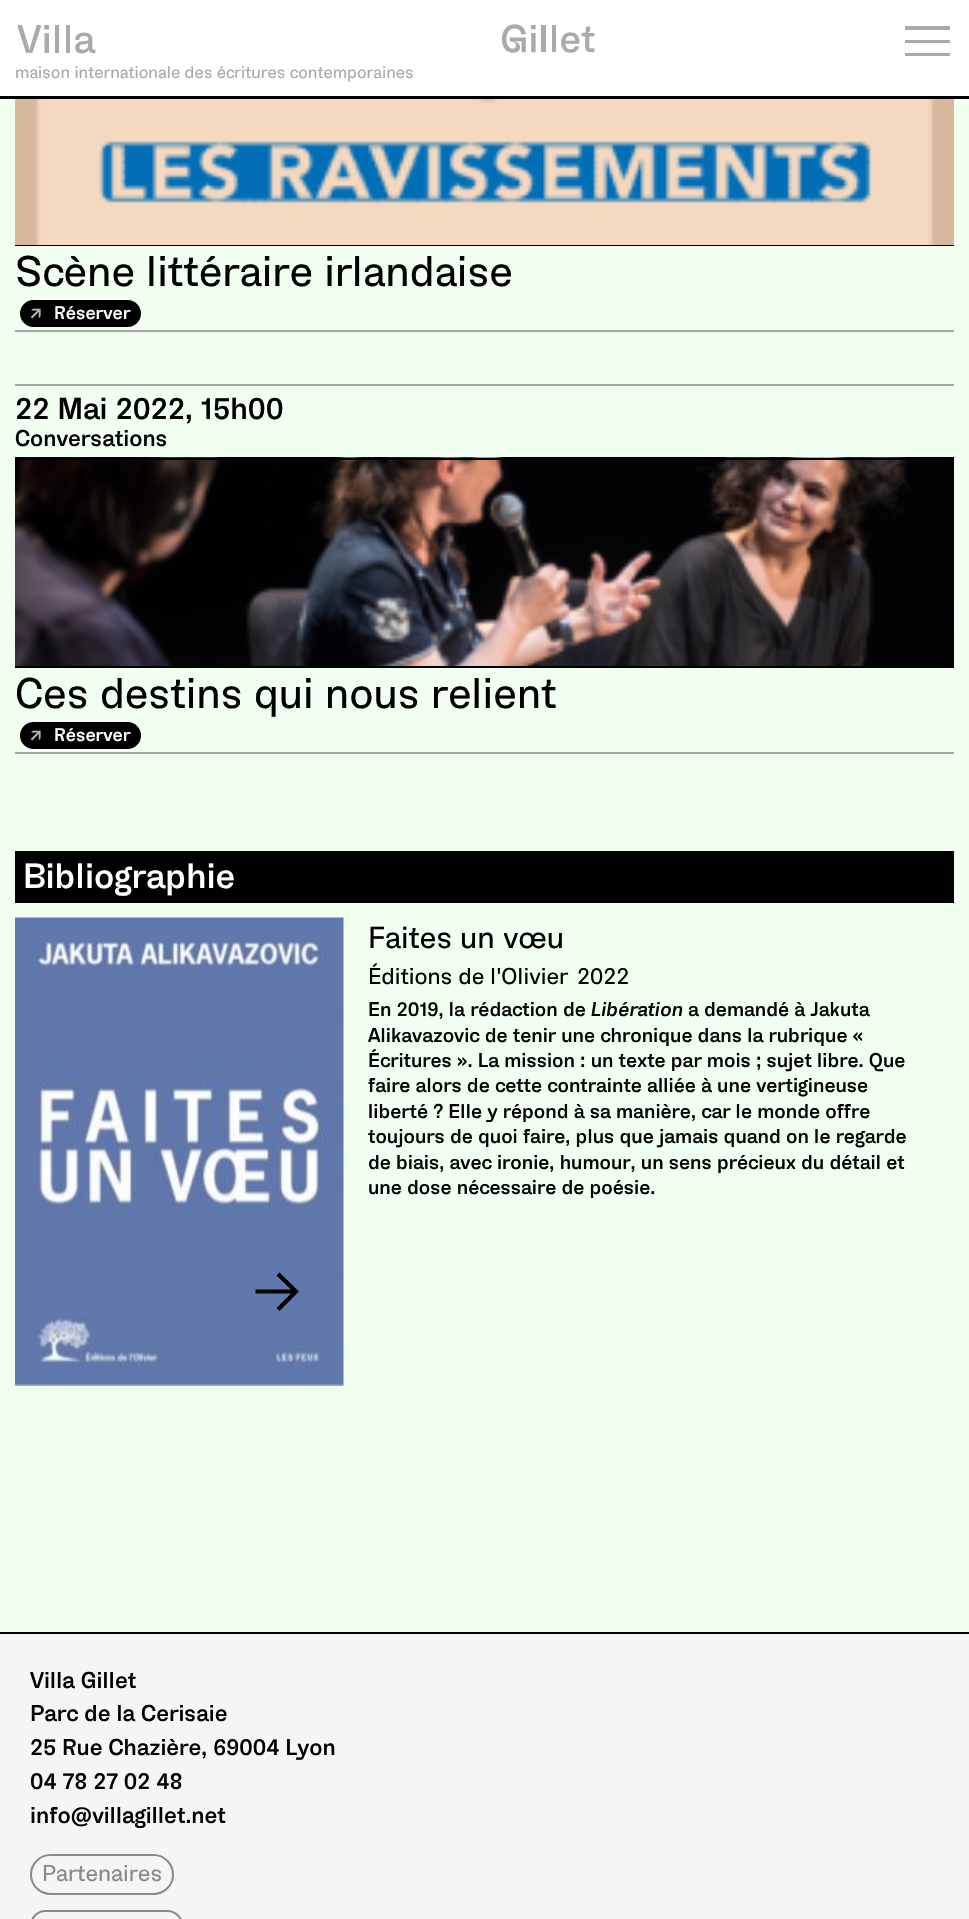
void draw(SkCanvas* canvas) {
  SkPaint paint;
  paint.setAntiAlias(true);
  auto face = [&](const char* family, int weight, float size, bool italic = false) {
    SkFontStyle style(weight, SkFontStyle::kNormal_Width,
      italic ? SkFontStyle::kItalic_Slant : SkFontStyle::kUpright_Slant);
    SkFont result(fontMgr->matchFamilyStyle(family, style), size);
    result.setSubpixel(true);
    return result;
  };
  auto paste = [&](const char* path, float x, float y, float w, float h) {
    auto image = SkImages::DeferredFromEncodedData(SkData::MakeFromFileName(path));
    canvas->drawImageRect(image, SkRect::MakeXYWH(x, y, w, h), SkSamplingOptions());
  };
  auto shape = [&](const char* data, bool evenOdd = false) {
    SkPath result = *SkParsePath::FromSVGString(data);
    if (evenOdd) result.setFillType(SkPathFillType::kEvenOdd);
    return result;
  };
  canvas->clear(0xfff0fff0);
  paint.setColor(0xffffffff);
  canvas->drawRect(SkRect::MakeXYWH(0, 0, 969, 96), paint);
  paint.setColor(0xff000000);
  canvas->drawRect(SkRect::MakeXYWH(0, 96, 969, 3), paint);
  paste("img/1.png", 17, 25, 79, 29);
  paste("img/2.png", 501, 24, 94, 29);
  {
    const struct { float x, y, w, h; SkColor color; } items[] = {
      {905, 26, 45, 4, 0xffaaaaaa},
      {905, 40, 45, 3, 0xffaaaaaa},
      {905, 53, 45, 3, 0xffaaaaaa},
      {15, 330, 939, 2, 0xffa5a5a5},
    };
    for (auto [x, y, w, h, color] : items) {
      paint.setColor(color);
      canvas->drawRect(SkRect::MakeXYWH(x, y, w, h), paint);
    }
  }
  paste("img/3.png", 15, 99, 939, 146);
  paint.setColor(0xff000000);
  canvas->drawRect(SkRect::MakeXYWH(15, 245, 939, 1), paint);
  canvas->drawRoundRect(SkRect::MakeXYWH(20, 300, 121, 27), 13.5f, 13.5f, paint);
  paint.setColor(0xffa5a5a5);
  canvas->drawRect(SkRect::MakeXYWH(15, 384, 939, 2), paint);
  canvas->drawRect(SkRect::MakeXYWH(15, 752, 939, 2), paint);
  paste("img/4.png", 15, 457, 939, 209);
  paint.setColor(0xff000000);
  canvas->drawRect(SkRect::MakeXYWH(15, 458, 939, 2), paint);
  canvas->drawRect(SkRect::MakeXYWH(15, 666, 939, 2), paint);
  canvas->drawRoundRect(SkRect::MakeXYWH(20, 722, 121, 27), 13.5f, 13.5f, paint);
  canvas->drawRect(SkRect::MakeXYWH(15, 851, 939, 52), paint);
  paste("img/5.png", 15, 917, 329, 469);
  paint.setStroke(true);
  paint.setStrokeWidth(4.2f);
  canvas->drawPath(shape("M296 1291.5H255.5M278 1274L296 1291.5L278 1309.5"), paint);
  paint.setStroke(false);
  paint.setColor(0xfff5f5f5);
  canvas->drawRect(SkRect::MakeXYWH(0, 1634, 969, 285), paint);
  paint.setColor(0xff000000);
  canvas->drawRect(SkRect::MakeXYWH(0, 1632, 969, 2), paint);
  paint.setStroke(true);
  paint.setStrokeWidth(2);
  paint.setColor(0xff898989);
  canvas->drawRoundRect(SkRect::MakeXYWH(31, 1855, 142, 39), 19.5f, 19.5f, paint);
  canvas->drawRoundRect(SkRect::MakeXYWH(31, 1911, 151, 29), 19, 19, paint);
  auto f0 = face("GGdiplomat", 500, 16.5f);
  paint.setStroke(false);
  paint.setColor(0xffaaaaaa);
  canvas->drawString("maison internationale des écritures contemporaines", 15, 78, f0, paint);
  auto f1 = face("GGdiplomat", 500, 42);
  paint.setColor(0xff000000);
  canvas->drawString("Scène littéraire irlandaise", 15, 286, f1, paint);
  auto f2 = face("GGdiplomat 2", 500, 18);
  paint.setColor(0xffb3b3b3);
  canvas->drawString("↗", 30, 319, f2, paint);
  paint.setColor(0xffffffff);
  canvas->drawString("Réserver", 54, 319, f2, paint);
  auto f3 = face("GGdiplomat 2", 500, 30);
  paint.setColor(0xff000000);
  canvas->drawString("22 Mai 2022, 15h00", 15, 419, f3, paint);
  auto f4 = face("GGdiplomat 2", 500, 22.5f);
  canvas->drawString("Conversations", 15, 446, f4, paint);
  canvas->drawString("Ces destins qui nous relient", 15, 708, f1, paint);
  paint.setColor(0xffb3b3b3);
  canvas->drawString("↗", 30, 741, f2, paint);
  paint.setColor(0xffffffff);
  canvas->drawString("Réserver", 54, 741, f2, paint);
  auto f5 = face("GGdiplomat 2", 500, 34.5f);
  canvas->drawString("Bibliographie", 23, 888, f5, paint);
  auto f6 = face("GGdiplomat", 500, 30);
  paint.setColor(0xff000000);
  canvas->drawString("Faites un vœu", 368, 948, f6, paint);
  auto f7 = face("GGdiplomat", 500, 22.5f);
  canvas->drawString("Éditions de l'Olivier", 368, 984, f7, paint);
  canvas->drawString("2022", 577, 984, f7, paint);
  auto f8 = face("GGdiplomat 2", 500, 19.5f);
  canvas->drawString("En 2019, la rédaction de", 368, 1016, f8, paint);
  auto f9 = face("GGdiplomat", 500, 19.5f, true);
  canvas->drawString("Libération", 591, 1016, f9, paint);
  {
    const struct { const char* s; float x, y; } items[] = {
      {"a demandé à Jakuta", 688, 1016},
      {"Alikavazovic de tenir une chronique dans la rubrique «", 368, 1042},
      {"Écritures ». La mission : un texte par mois ; sujet libre. Que", 368, 1067},
      {"faire alors de cette contrainte alliée à une vertigineuse", 368, 1092},
      {"liberté ? Elle y répond à sa manière, car le monde offre", 368, 1118},
      {"toujours de quoi faire, plus que jamais quand on le regarde", 368, 1143},
      {"de biais, avec ironie, humour, un sens précieux du détail et", 368, 1169},
      {"une dose nécessaire de poésie.", 368, 1194},
    };
    for (auto [s, x, y] : items) {
      canvas->drawString(s, x, y, f8, paint);
    }
  }
  {
    const struct { const char* s; float x, y; } items[] = {
      {"Villa Gillet", 30, 1688},
      {"Parc de la Cerisaie", 30, 1721},
      {"25 Rue Chazière, 69004 Lyon", 30, 1755},
      {"04 78 27 02 48", 30, 1789},
      {"info@villagillet.net", 30, 1823},
    };
    for (auto [s, x, y] : items) {
      canvas->drawString(s, x, y, f4, paint);
    }
  }
  paint.setColor(0xff898989);
  canvas->drawString("Partenaires", 42, 1881, f7, paint);
}
